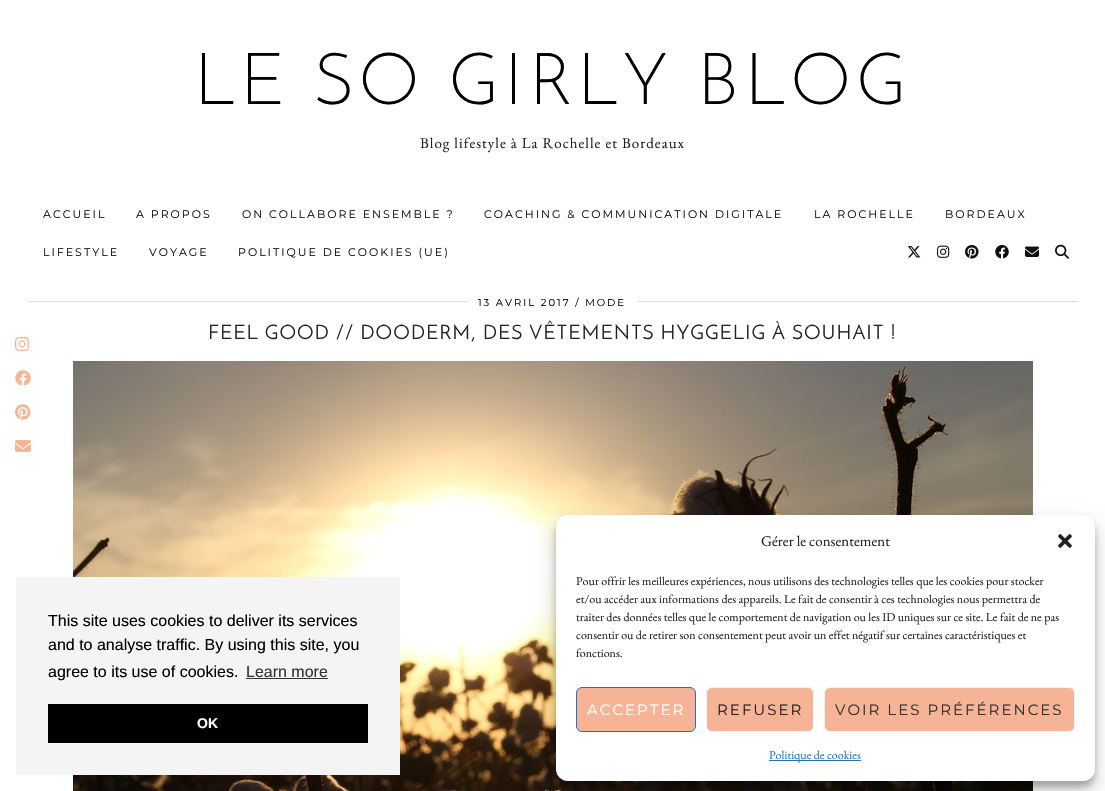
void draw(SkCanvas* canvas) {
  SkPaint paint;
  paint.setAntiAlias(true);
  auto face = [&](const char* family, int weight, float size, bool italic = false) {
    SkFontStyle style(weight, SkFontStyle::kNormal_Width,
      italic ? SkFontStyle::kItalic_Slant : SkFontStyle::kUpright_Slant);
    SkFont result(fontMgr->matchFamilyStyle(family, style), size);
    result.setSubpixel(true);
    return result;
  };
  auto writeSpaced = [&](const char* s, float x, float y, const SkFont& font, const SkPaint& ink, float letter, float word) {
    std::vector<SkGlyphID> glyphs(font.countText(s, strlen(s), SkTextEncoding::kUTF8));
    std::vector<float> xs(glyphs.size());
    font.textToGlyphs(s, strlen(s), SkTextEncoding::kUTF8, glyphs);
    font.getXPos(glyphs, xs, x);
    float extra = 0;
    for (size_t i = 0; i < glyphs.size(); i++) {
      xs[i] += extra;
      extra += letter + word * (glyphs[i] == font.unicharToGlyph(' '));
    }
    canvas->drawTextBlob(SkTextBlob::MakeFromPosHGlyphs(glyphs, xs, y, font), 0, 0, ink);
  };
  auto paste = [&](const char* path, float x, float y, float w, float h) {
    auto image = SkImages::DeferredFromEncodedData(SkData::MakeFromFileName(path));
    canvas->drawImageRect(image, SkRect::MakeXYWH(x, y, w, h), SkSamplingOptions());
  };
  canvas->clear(0xffffffff);
  paste("img/1.png", 907, 246, 14, 12);
  paste("img/2.png", 937, 245, 13, 13);
  paste("img/3.png", 965, 245, 14, 14);
  paste("img/4.png", 995, 245, 14, 14);
  paste("img/5.png", 1025, 246, 14, 11);
  paste("img/6.png", 1055, 244, 14, 15);
  {
    const struct { float x, y, w, h; SkColor color; } items[] = {
      {28, 301, 1050, 1, 0xffdddddd},
      {468, 301, 103, 1, 0xffffffff},
      {571, 296, 5, 13, 0xffffffff},
      {576, 301, 61, 1, 0xffffffff},
    };
    for (auto [x, y, w, h, color] : items) {
      paint.setColor(color);
      canvas->drawRect(SkRect::MakeXYWH(x, y, w, h), paint);
    }
  }
  paste("img/7.png", 73, 361, 960, 430);
  paste("img/8.png", 15, 337, 14, 14);
  paste("img/9.png", 15, 370, 16, 16);
  paste("img/10.png", 15, 404, 16, 16);
  paste("img/11.png", 15, 440, 16, 12);
  {
    const struct { float x, y, w, h; SkColor color; } items[] = {
      {16, 577, 384, 198, 0xfff4f4f4},
      {246, 678, 82, 1, 0xff313131},
      {48, 704, 320, 39, 0xff000000},
    };
    for (auto [x, y, w, h, color] : items) {
      paint.setColor(color);
      canvas->drawRect(SkRect::MakeXYWH(x, y, w, h), paint);
    }
  }
  paint.setColor(0x3b000000);
  paint.setMaskFilter(SkMaskFilter::MakeBlur(kNormal_SkBlurStyle, 3));
  canvas->drawRoundRect(SkRect::MakeXYWH(556, 521, 539, 266), 12, 12, paint);
  paint.setMaskFilter(nullptr);
  paint.setColor(0x30000000);
  paint.setMaskFilter(SkMaskFilter::MakeBlur(kNormal_SkBlurStyle, 10));
  canvas->drawRoundRect(SkRect::MakeXYWH(556, 525, 539, 266), 12, 12, paint);
  paint.setMaskFilter(nullptr);
  paint.setColor(0xffffffff);
  canvas->drawRoundRect(SkRect::MakeXYWH(556, 515, 539, 266), 12, 12, paint);
  paste("img/12.png", 1058, 534, 14, 14);
  paint.setColor(0xfff7b396);
  canvas->drawRoundRect(SkRect::MakeXYWH(576.5f, 687.5f, 119, 44), 5.5f, 5.5f, paint);
  paint.setStroke(true);
  paint.setStrokeWidth(1);
  paint.setColor(0xff1e73be);
  canvas->drawRoundRect(SkRect::MakeXYWH(576.5f, 687.5f, 119, 44), 5.5f, 5.5f, paint);
  paint.setStroke(false);
  paint.setColor(0xfff7b396);
  canvas->drawRoundRect(SkRect::MakeXYWH(706.5f, 687.5f, 107, 44), 5.5f, 5.5f, paint);
  paint.setStroke(true);
  paint.setColor(0xfff2f2f2);
  canvas->drawRoundRect(SkRect::MakeXYWH(706.5f, 687.5f, 107, 44), 5.5f, 5.5f, paint);
  paint.setStroke(false);
  paint.setColor(0xfff7b396);
  canvas->drawRoundRect(SkRect::MakeXYWH(824.5f, 687.5f, 250, 44), 5.5f, 5.5f, paint);
  paint.setStroke(true);
  paint.setColor(0xfff2f2f2);
  canvas->drawRoundRect(SkRect::MakeXYWH(824.5f, 687.5f, 250, 44), 5.5f, 5.5f, paint);
  paint.setStroke(false);
  paint.setColor(0xff1e73be);
  canvas->drawRect(SkRect::MakeXYWH(769, 760, 92, 1), paint);
  auto f0 = face("Josefin Sans", 300, 72);
  paint.setColor(0xff000000);
  writeSpaced("LE SO GIRLY BLOG", 194, 104, f0, paint, 6, 0);
  auto f1 = face("EB Garamond", 400, 15);
  paint.setColor(0xff222222);
  writeSpaced("Blog lifestyle à La Rochelle et Bordeaux", 420, 148, f1, paint, 1, 0);
  auto f2 = face("Montserrat", 100, 11);
  paint.setColor(0xff0f0f0f);
  {
    const struct { const char* s; float x, y; } items[] = {
      {"ACCUEIL", 43, 218},
      {"A PROPOS", 136, 218},
      {"ON COLLABORE ENSEMBLE ?", 242, 218},
      {"COACHING & COMMUNICATION DIGITALE", 484, 218},
      {"LA ROCHELLE", 814, 218},
      {"BORDEAUX", 945, 218},
      {"LIFESTYLE", 43, 256},
      {"VOYAGE", 149, 256},
      {"POLITIQUE DE COOKIES (UE)", 238, 256},
    };
    for (auto [s, x, y] : items) {
      writeSpaced(s, x, y, f2, paint, 2, 0);
    }
  }
  auto f3 = face("Montserrat", 100, 10);
  paint.setColor(0xff000000);
  writeSpaced("13 AVRIL 2017 / MODE", 478, 306, f3, paint, 2, 0);
  auto f4 = face("Josefin Sans", 400, 20);
  paint.setColor(0xff222222);
  writeSpaced("FEEL GOOD // DOODERM, DES VÊTEMENTS HYGGELIG À SOUHAIT !", 208, 339, f4, paint, 1, 0);
  auto f5 = face("Liberation Sans", 400, 16);
  paint.setColor(0xff000000);
  {
    const struct { const char* s; float x, y; } items[] = {
      {"This site uses cookies to deliver its services", 48, 626},
      {"and to analyse traffic. By using this site, you", 48, 650},
      {"agree to its use of cookies.", 48, 677},
    };
    for (auto [s, x, y] : items) {
      canvas->drawString(s, x, y, f5, paint);
    }
  }
  paint.setColor(0xff313131);
  canvas->drawString("Learn more", 246, 677, f5, paint);
  auto f6 = face("Liberation Sans", 700, 14);
  paint.setColor(0xffffffff);
  canvas->drawString("OK", 197, 728, f6, paint);
  paint.setColor(0xff222222);
  canvas->drawString("Gérer le consentement", 761, 546, f1, paint);
  auto f7 = face("EB Garamond", 400, 12);
  {
    const struct { const char* s; float x, y; } items[] = {
      {"Pour offrir les meilleures expériences, nous utilisons des technologies telles que les cookies pour stocker", 576, 585},
      {"et/ou accéder aux informations des appareils. Le fait de consentir à ces technologies nous permettra de", 576, 603},
      {"traiter des données telles que le comportement de navigation ou les ID uniques sur ce site. Le fait de ne pas", 576, 621},
      {"consentir ou de retirer son consentement peut avoir un effet négatif sur certaines caractéristiques et", 576, 639},
      {"fonctions.", 576, 657},
    };
    for (auto [s, x, y] : items) {
      canvas->drawString(s, x, y, f7, paint);
    }
  }
  auto f8 = face("Montserrat", 100, 15);
  paint.setColor(0xffffffff);
  writeSpaced("ACCEPTER", 587, 715, f8, paint, 2, 0);
  paint.setColor(0xff222222);
  writeSpaced("REFUSER", 717, 715, f8, paint, 2, 0);
  paint.setColor(0xff313131);
  writeSpaced("VOIR LES PRÉFÉRENCES", 835, 715, f8, paint, 2, 0);
  paint.setColor(0xff1e73be);
  canvas->drawString("Politique de cookies", 769, 759, f7, paint);
}
